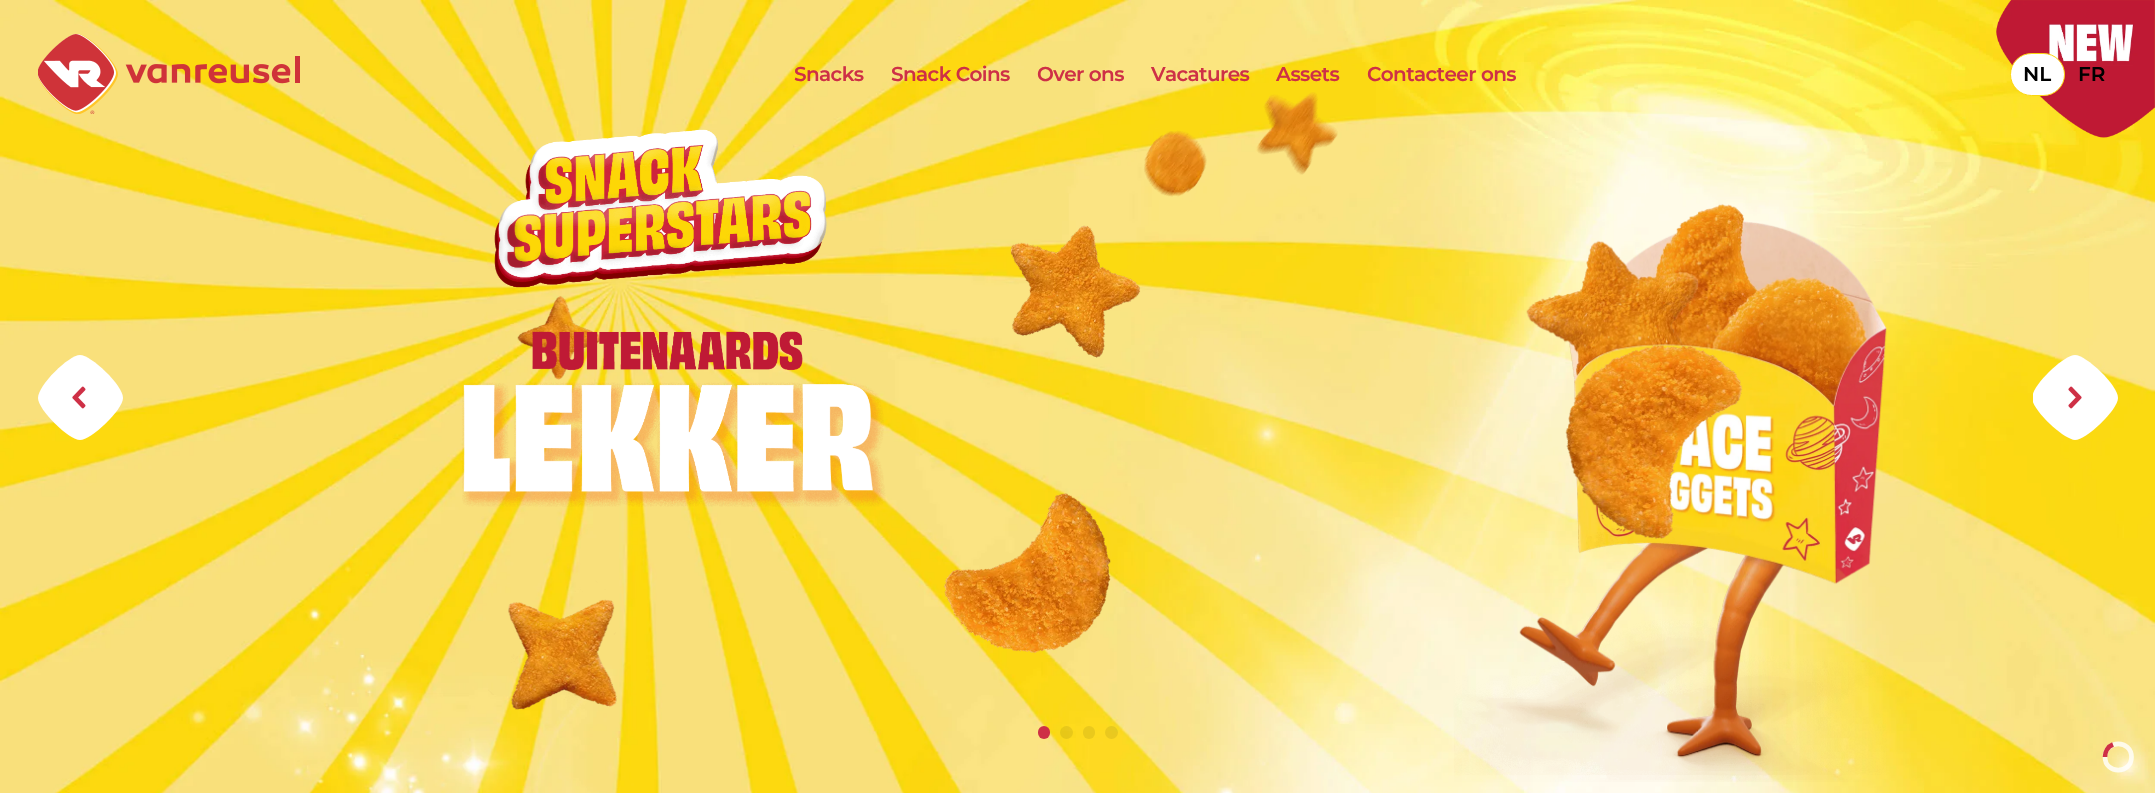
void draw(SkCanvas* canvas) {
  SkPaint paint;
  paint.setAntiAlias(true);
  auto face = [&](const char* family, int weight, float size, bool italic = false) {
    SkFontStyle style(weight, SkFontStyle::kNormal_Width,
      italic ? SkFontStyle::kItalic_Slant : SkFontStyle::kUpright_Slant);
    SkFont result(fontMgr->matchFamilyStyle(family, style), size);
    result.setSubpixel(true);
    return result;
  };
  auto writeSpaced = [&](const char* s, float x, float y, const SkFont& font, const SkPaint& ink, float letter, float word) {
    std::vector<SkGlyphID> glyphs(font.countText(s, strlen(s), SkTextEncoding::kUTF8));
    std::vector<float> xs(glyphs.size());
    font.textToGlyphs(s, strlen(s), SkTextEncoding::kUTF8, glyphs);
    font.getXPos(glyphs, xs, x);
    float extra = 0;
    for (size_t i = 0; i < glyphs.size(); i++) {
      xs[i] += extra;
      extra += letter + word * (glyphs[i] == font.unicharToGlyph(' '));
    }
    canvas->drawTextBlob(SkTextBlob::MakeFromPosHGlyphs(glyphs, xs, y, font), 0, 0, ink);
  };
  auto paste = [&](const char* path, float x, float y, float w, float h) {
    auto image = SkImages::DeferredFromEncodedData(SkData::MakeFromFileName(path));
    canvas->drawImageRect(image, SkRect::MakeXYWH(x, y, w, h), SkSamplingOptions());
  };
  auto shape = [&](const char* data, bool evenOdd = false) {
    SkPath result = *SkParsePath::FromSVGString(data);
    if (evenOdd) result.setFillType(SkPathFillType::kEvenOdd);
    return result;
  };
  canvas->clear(0xffffffff);
  paste("img/1.png", 0, 0, 2155, 793);
  paste("img/2.png", 1996, 0, 159, 138);
  paste("img/3.png", 517, 92, 821, 288);
  paste("img/4.png", 462, 129, 424, 378);
  paste("img/5.png", 1454, 204, 433, 578);
  paste("img/6.png", 488, 225, 1255, 485);
  paint.setColor(0xffffffff);
  canvas->drawPath(shape("M80 355C69 355 38 385 38 398C38 410 69 440 80 440C91 440 123 410 123 398C123 385 91 355 80 355Z"), paint);
  paste("img/7.png", 72, 386, 14, 23);
  canvas->save();
  canvas->clipRect(SkRect::MakeXYWH(2033, 355, 85, 85));
  canvas->drawPath(shape("M2075 355C2064 355 2032 385 2032 398C2032 410 2064 440 2075 440C2086 440 2118 410 2118 398C2118 385 2086 355 2075 355Z"), paint);
  canvas->restore();
  paste("img/8.png", 2068, 386, 14, 23);
  paint.setColor(0xffce3046);
  canvas->drawRoundRect(SkRect::MakeXYWH(1038, 726, 12, 13), 6, 6, paint);
  paint.setColor(0x14000000);
  canvas->drawCircle(1066.5f, 732.5f, 6.5f, paint);
  paint.setColor(0xffeac91c);
  canvas->drawRoundRect(SkRect::MakeXYWH(1083, 726, 12, 13), 6, 6, paint);
  paint.setColor(0x14000000);
  canvas->drawCircle(1111.5f, 732.5f, 6.5f, paint);
  paint.setStroke(true);
  paint.setStrokeWidth(4.7f);
  paint.setColor(0xccffffff);
  canvas->drawPath(shape("M2105 757C2105 739.5 2131.5 739.5 2131.5 757C2131.5 774.5 2105 774.5 2105 757Z"), paint);
  paint.setColor(0xffce3046);
  canvas->drawPath(shape("M2105 757C2105 751.5 2108 746.5 2113 744.5"), paint);
  paste("img/9.png", 38, 34, 262, 80);
  paint.setStroke(false);
  paint.setColor(0xffffffff);
  canvas->drawRoundRect(SkRect::MakeXYWH(2010.5f, 53.5f, 54, 42), 21, 21, paint);
  paint.setStroke(true);
  paint.setStrokeWidth(1);
  paint.setColor(0xfffcd60f);
  canvas->drawRoundRect(SkRect::MakeXYWH(2010.5f, 53.5f, 54, 42), 21, 21, paint);
  auto f0 = face("Montserrat", 100, 20);
  paint.setStroke(false);
  paint.setColor(0xffce3046);
  {
    const struct { const char* s; float x, y; } items[] = {
      {"Snacks", 794, 81},
      {"Snack Coins", 891, 81},
      {"Over ons", 1037, 81},
      {"Vacatures", 1151, 81},
      {"Assets", 1276, 81},
      {"Contacteer ons", 1367, 81},
    };
    for (auto [s, x, y] : items) {
      writeSpaced(s, x, y, f0, paint, -0.6f, 0);
    }
  }
  paint.setColor(0xff000000);
  canvas->drawString("NL", 2023, 81, f0, paint);
  canvas->drawString("FR", 2078, 81, f0, paint);
}
